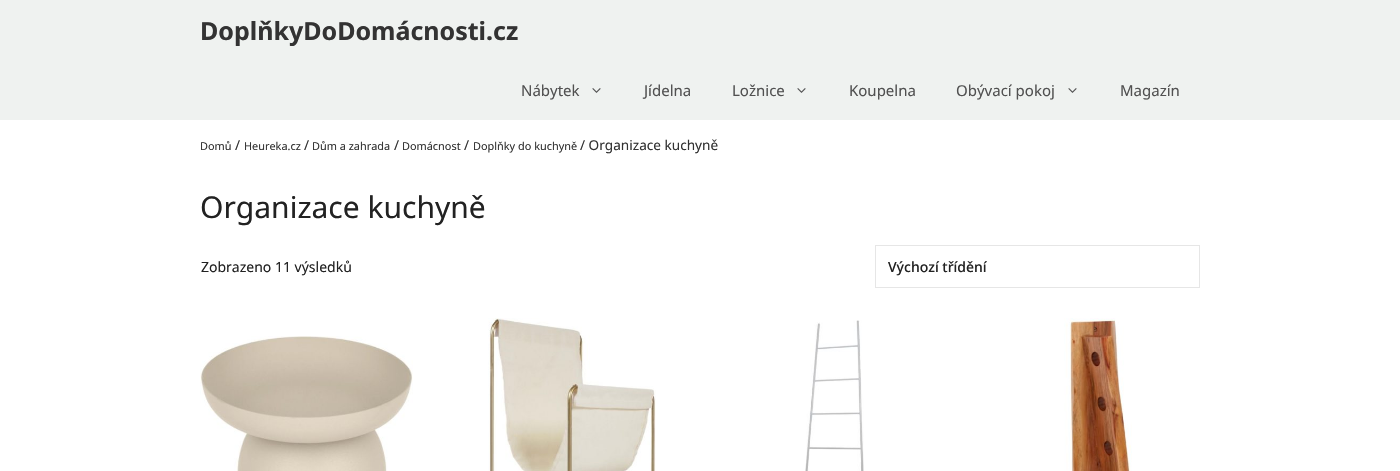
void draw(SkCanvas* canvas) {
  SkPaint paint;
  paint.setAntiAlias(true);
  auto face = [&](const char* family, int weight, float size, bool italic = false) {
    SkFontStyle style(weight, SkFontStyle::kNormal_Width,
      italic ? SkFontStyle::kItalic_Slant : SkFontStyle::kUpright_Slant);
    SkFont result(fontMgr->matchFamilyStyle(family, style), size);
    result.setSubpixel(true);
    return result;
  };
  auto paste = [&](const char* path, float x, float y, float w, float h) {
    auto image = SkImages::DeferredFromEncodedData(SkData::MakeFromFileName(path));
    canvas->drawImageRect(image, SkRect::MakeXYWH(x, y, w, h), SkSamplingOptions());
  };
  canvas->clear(0xffffffff);
  paint.setColor(0xffeff2f0);
  canvas->drawRect(SkRect::MakeXYWH(0, 0, 1400, 120), paint);
  paste("img/1.png", 592, 88, 9, 5);
  paste("img/1.png", 797, 88, 9, 5);
  paste("img/1.png", 1068, 88, 9, 5);
  paint.setStroke(true);
  paint.setStrokeWidth(1);
  paint.setColor(0xffe6e6e6);
  canvas->drawRect(SkRect::MakeXYWH(875.5f, 245.5f, 324, 42), paint);
  paste("img/2.png", 200, 336, 213, 135);
  paste("img/3.png", 488, 318, 168, 153);
  paste("img/4.png", 805, 320, 59, 151);
  paste("img/5.png", 1064, 318, 68, 153);
  auto f0 = face("Noto Sans", 700, 25);
  paint.setStroke(false);
  paint.setColor(0xff333333);
  canvas->drawString("DoplňkyDoDomácnosti.cz", 200, 40, f0, paint);
  auto f1 = face("Noto Sans", 400, 15);
  paint.setColor(0xff515151);
  {
    const struct { const char* s; float x, y; } items[] = {
      {"Nábytek", 521, 96},
      {"Jídelna", 644, 96},
      {"Ložnice", 732, 96},
      {"Koupelna", 849, 96},
      {"Obývací pokoj", 956, 96},
      {"Magazín", 1120, 96},
    };
    for (auto [s, x, y] : items) {
      canvas->drawString(s, x, y, f1, paint);
    }
  }
  auto f2 = face("Noto Sans", 400, 10.9f);
  paint.setColor(0xff333333);
  canvas->drawString("Domů", 200, 150, f2, paint);
  auto f3 = face("Noto Sans", 400, 13.6f);
  canvas->drawString("/", 235, 150, f3, paint);
  canvas->drawString("Heureka.cz", 244, 150, f2, paint);
  canvas->drawString("/", 304, 150, f3, paint);
  canvas->drawString("Dům a zahrada", 312, 150, f2, paint);
  canvas->drawString("/", 394, 150, f3, paint);
  canvas->drawString("Domácnost", 402, 150, f2, paint);
  canvas->drawString("/", 464, 150, f3, paint);
  canvas->drawString("Doplňky do kuchyně", 473, 150, f2, paint);
  canvas->drawString("/ Organizace kuchyně", 580, 150, f3, paint);
  auto f4 = face("Noto Sans", 400, 30);
  paint.setColor(0xff222222);
  canvas->drawString("Organizace kuchyně", 200, 218, f4, paint);
  auto f5 = face("Noto Sans", 400, 14);
  canvas->drawString("Zobrazeno 11 výsledků", 201, 272, f5, paint);
  auto f6 = face("Noto Sans", 500, 14);
  canvas->drawString("Výchozí třídění", 888, 272, f6, paint);
}
